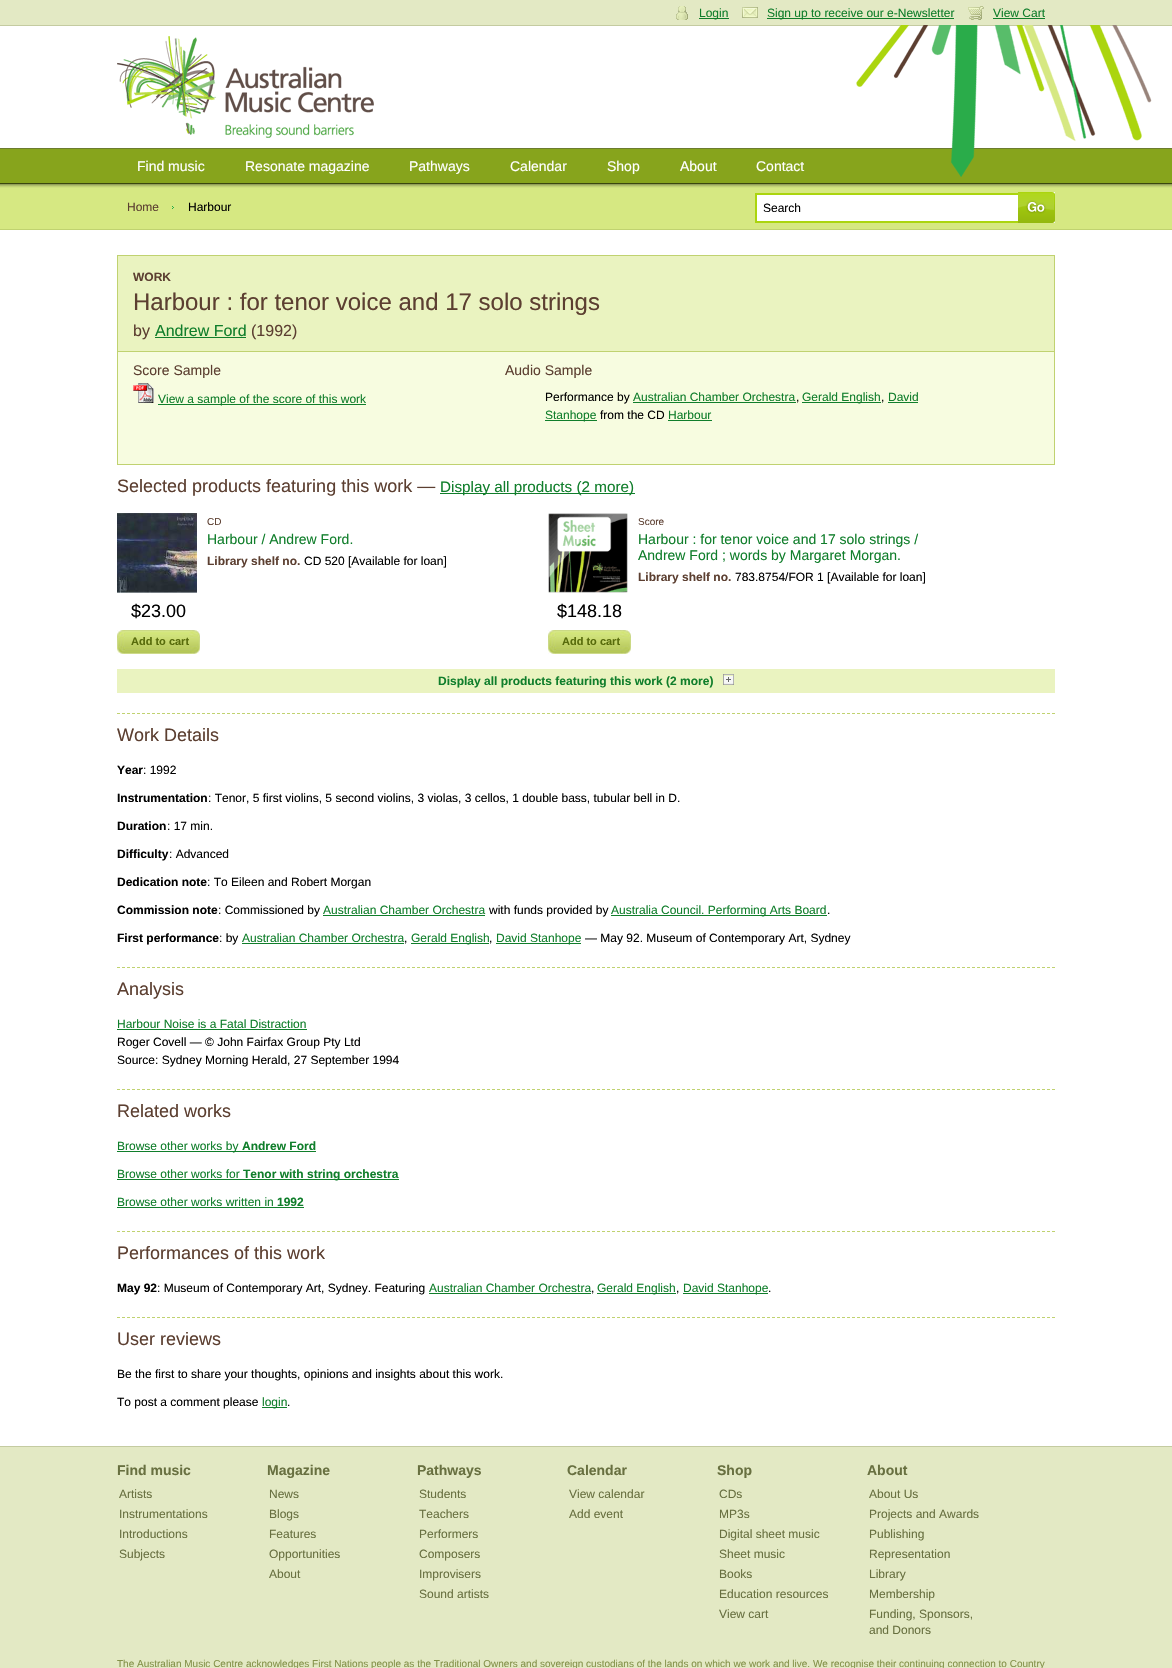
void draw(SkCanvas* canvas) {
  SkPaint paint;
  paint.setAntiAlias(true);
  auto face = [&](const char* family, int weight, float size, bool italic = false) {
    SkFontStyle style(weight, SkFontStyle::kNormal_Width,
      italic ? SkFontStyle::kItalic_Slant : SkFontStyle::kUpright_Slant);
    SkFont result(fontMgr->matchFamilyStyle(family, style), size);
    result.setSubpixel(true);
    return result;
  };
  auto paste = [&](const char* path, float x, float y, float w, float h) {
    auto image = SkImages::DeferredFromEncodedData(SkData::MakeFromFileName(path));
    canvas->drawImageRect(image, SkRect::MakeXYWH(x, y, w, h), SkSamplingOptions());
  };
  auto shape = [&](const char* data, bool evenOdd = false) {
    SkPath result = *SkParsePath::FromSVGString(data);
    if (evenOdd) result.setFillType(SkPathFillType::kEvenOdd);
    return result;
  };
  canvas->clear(0xffe3e9c4);
  paint.setColor(0xffc4cba1);
  canvas->drawRect(SkRect::MakeXYWH(0, 25, 1172, 1), paint);
  paste("img/1.png", 676, 6, 12, 14);
  paint.setColor(0xff107e2b);
  canvas->drawRect(SkRect::MakeXYWH(699, 18, 30, 1), paint);
  paste("img/2.png", 742, 7, 16, 11);
  canvas->drawRect(SkRect::MakeXYWH(767, 18, 187, 1), paint);
  paste("img/3.png", 968, 6, 16, 14);
  canvas->drawRect(SkRect::MakeXYWH(993, 18, 52, 1), paint);
  paint.setColor(0xffffffff);
  canvas->drawRect(SkRect::MakeXYWH(0, 26, 1172, 122), paint);
  paste("img/4.png", 117, 36, 257, 102);
  {
    const struct { float x, y, w, h; SkColor color; } items[] = {
      {0, 149, 1172, 34, 0xff87a41c},
      {0, 148, 1172, 1, 0xff6c7c2f},
      {0, 183, 1172, 1, 0xff3a470e},
      {0, 188, 1172, 41, 0xffd6e882},
    };
    for (auto [x, y, w, h, color] : items) {
      paint.setColor(color);
      canvas->drawRect(SkRect::MakeXYWH(x, y, w, h), paint);
    }
  }
  paste("img/5.png", 0, 184, 1172, 4);
  paint.setColor(0xffc0d270);
  canvas->drawRect(SkRect::MakeXYWH(0, 229, 1172, 1), paint);
  paste("img/6.png", 172, 206, 2, 3);
  paint.setColor(0xffffffff);
  canvas->drawRect(SkRect::MakeXYWH(757, 195, 261, 26), paint);
  paint.setStroke(true);
  paint.setStrokeWidth(2);
  paint.setColor(0xffabd50e);
  canvas->drawRect(SkRect::MakeXYWH(756, 194, 264, 28), paint);
  paste("img/7.png", 1018, 192, 37, 31);
  paint.setStroke(false);
  paint.setColor(0xffffffff);
  canvas->drawRect(SkRect::MakeXYWH(0, 230, 1172, 1216), paint);
  paint.setColor(0xffeaf3c0);
  canvas->drawRect(SkRect::MakeXYWH(117.5f, 255.5f, 937, 96), paint);
  paint.setStroke(true);
  paint.setStrokeWidth(1);
  paint.setColor(0xffc0d270);
  canvas->drawRect(SkRect::MakeXYWH(117.5f, 255.5f, 937, 96), paint);
  paint.setStroke(false);
  {
    const struct { float x, y, w, h; SkColor color; } items[] = {
      {155, 337, 91, 1, 0xff107e2b},
      {118, 352, 936, 112, 0xfff7fce0},
      {1054, 352, 1, 113, 0xffc0d270},
      {117, 464, 938, 1, 0xffc0d270},
      {117, 352, 1, 113, 0xffc0d270},
    };
    for (auto [x, y, w, h, color] : items) {
      paint.setColor(color);
      canvas->drawRect(SkRect::MakeXYWH(x, y, w, h), paint);
    }
  }
  paste("img/8.png", 133, 383, 21, 20);
  {
    const struct { float x, y, w, h; SkColor color; } items[] = {
      {158, 404, 208, 1, 0xff107e2b},
      {633, 402, 163, 1, 0xff107e2b},
      {802, 402, 79, 1, 0xff107e2b},
      {888, 402, 30, 1, 0xff107e2b},
      {545, 420, 52, 1, 0xff107e2b},
      {668, 420, 44, 1, 0xff107e2b},
    };
    for (auto [x, y, w, h, color] : items) {
      paint.setColor(color);
      canvas->drawRect(SkRect::MakeXYWH(x, y, w, h), paint);
    }
  }
  paint.setStroke(true);
  paint.setColor(0xffc0d270);
  paint.setPathEffect(SkDashPathEffect::Make({{3, 2}}, 0));
  canvas->drawPath(shape("M117 713.5H1055"), paint);
  paint.setPathEffect(nullptr);
  paint.setStroke(false);
  paint.setColor(0xff107e2b);
  canvas->drawRect(SkRect::MakeXYWH(440, 493, 195, 1), paint);
  paste("img/9.png", 117, 513, 80, 80);
  paste("img/10.png", 117, 630, 83, 24);
  paste("img/11.png", 548, 513, 80, 80);
  paste("img/10.png", 548, 630, 83, 24);
  paint.setColor(0xffeaf3c0);
  canvas->drawRect(SkRect::MakeXYWH(117, 669, 938, 24), paint);
  paste("img/12.png", 723, 674, 11, 11);
  paint.setStroke(true);
  paint.setColor(0xffc0d270);
  paint.setPathEffect(SkDashPathEffect::Make({{3, 2}}, 0));
  canvas->drawPath(shape("M117 967.5H1055"), paint);
  paint.setPathEffect(nullptr);
  paint.setStroke(false);
  {
    const struct { float x, y, w, h; SkColor color; } items[] = {
      {323, 915, 162, 1, 0xff107e2b},
      {611, 915, 216, 1, 0xff107e2b},
      {242, 943, 162, 1, 0xff107e2b},
      {411, 943, 78, 1, 0xff107e2b},
      {496, 943, 85, 1, 0xff107e2b},
    };
    for (auto [x, y, w, h, color] : items) {
      paint.setColor(color);
      canvas->drawRect(SkRect::MakeXYWH(x, y, w, h), paint);
    }
  }
  paint.setStroke(true);
  paint.setColor(0xffc0d270);
  paint.setPathEffect(SkDashPathEffect::Make({{3, 2}}, 0));
  canvas->drawPath(shape("M117 1089.5H1055"), paint);
  paint.setPathEffect(nullptr);
  paint.setStroke(false);
  paint.setColor(0xff107e2b);
  canvas->drawRect(SkRect::MakeXYWH(117, 1029, 190, 1), paint);
  paint.setStroke(true);
  paint.setColor(0xffc0d270);
  paint.setPathEffect(SkDashPathEffect::Make({{3, 2}}, 0));
  canvas->drawPath(shape("M117 1231.5H1055"), paint);
  paint.setPathEffect(nullptr);
  paint.setStroke(false);
  {
    const struct { float x, y, w, h; SkColor color; } items[] = {
      {117, 1151, 199, 1, 0xff107e2b},
      {117, 1179, 282, 1, 0xff107e2b},
      {117, 1207, 187, 1, 0xff107e2b},
    };
    for (auto [x, y, w, h, color] : items) {
      paint.setColor(color);
      canvas->drawRect(SkRect::MakeXYWH(x, y, w, h), paint);
    }
  }
  paint.setStroke(true);
  paint.setColor(0xffc0d270);
  paint.setPathEffect(SkDashPathEffect::Make({{3, 2}}, 0));
  canvas->drawPath(shape("M117 1317.5H1055"), paint);
  paint.setPathEffect(nullptr);
  paint.setStroke(false);
  {
    const struct { float x, y, w, h; SkColor color; } items[] = {
      {429, 1293, 162, 1, 0xff107e2b},
      {597, 1293, 79, 1, 0xff107e2b},
      {683, 1293, 85, 1, 0xff107e2b},
      {262, 1407, 25, 1, 0xff107e2b},
      {0, 1446, 1172, 1, 0xffc4cba1},
    };
    for (auto [x, y, w, h, color] : items) {
      paint.setColor(color);
      canvas->drawRect(SkRect::MakeXYWH(x, y, w, h), paint);
    }
  }
  paste("img/13.png", 856, 25, 296, 152);
  auto f0 = face("Liberation Sans", 400, 12);
  paint.setColor(0xff107e2b);
  {
    const struct { const char* s; float x, y; } items[] = {
      {"Login", 699, 17},
      {"Sign up to receive our e-Newsletter", 767, 17},
      {"View Cart", 993, 17},
    };
    for (auto [s, x, y] : items) {
      canvas->drawString(s, x, y, f0, paint);
    }
  }
  auto f1 = face("Liberation Sans", 400, 14);
  paint.setColor(0xffffffff);
  {
    const struct { const char* s; float x, y; } items[] = {
      {"Find music", 137, 171},
      {"Resonate magazine", 245, 171},
      {"Pathways", 409, 171},
      {"Calendar", 510, 171},
      {"Shop", 607, 171},
      {"About", 680, 171},
      {"Contact", 756, 171},
    };
    for (auto [s, x, y] : items) {
      canvas->drawString(s, x, y, f1, paint);
    }
  }
  paint.setColor(0xff5c3f31);
  canvas->drawString("Home", 127, 211, f0, paint);
  paint.setColor(0xff000000);
  canvas->drawString("Harbour", 188, 211, f0, paint);
  canvas->drawString("Search", 763, 212, f0, paint);
  auto f2 = face("Liberation Sans", 700, 12);
  paint.setColor(0xff5c3f31);
  canvas->drawString("WORK", 133, 281, f2, paint);
  auto f3 = face("Liberation Sans", 400, 24);
  canvas->drawString("Harbour : for tenor voice and 17 solo strings", 133, 310, f3, paint);
  auto f4 = face("Liberation Sans", 400, 16);
  canvas->drawString("by", 133, 336, f4, paint);
  paint.setColor(0xff107e2b);
  canvas->drawString("Andrew Ford", 155, 336, f4, paint);
  paint.setColor(0xff5c3f31);
  canvas->drawString("(1992)", 251, 336, f4, paint);
  canvas->drawString("Score Sample", 133, 375, f1, paint);
  paint.setColor(0xff107e2b);
  canvas->drawString("View a sample of the score of this work", 158, 403, f0, paint);
  paint.setColor(0xff5c3f31);
  canvas->drawString("Audio Sample", 505, 375, f1, paint);
  paint.setColor(0xff000000);
  canvas->drawString("Performance by", 545, 401, f0, paint);
  paint.setColor(0xff107e2b);
  canvas->drawString("Australian Chamber Orchestra", 633, 401, f0, paint);
  paint.setColor(0xff000000);
  canvas->drawString(",", 796, 401, f0, paint);
  paint.setColor(0xff107e2b);
  canvas->drawString("Gerald English", 802, 401, f0, paint);
  paint.setColor(0xff000000);
  canvas->drawString(",", 881, 401, f0, paint);
  paint.setColor(0xff107e2b);
  canvas->drawString("David", 888, 401, f0, paint);
  canvas->drawString("Stanhope", 545, 419, f0, paint);
  paint.setColor(0xff000000);
  canvas->drawString("from the CD", 600, 419, f0, paint);
  paint.setColor(0xff107e2b);
  canvas->drawString("Harbour", 668, 419, f0, paint);
  auto f5 = face("Liberation Sans", 400, 18);
  paint.setColor(0xff5c3f31);
  canvas->drawString("Selected products featuring this work —", 117, 492, f5, paint);
  auto f6 = face("Liberation Sans", 400, 15.25f);
  paint.setColor(0xff107e2b);
  canvas->drawString("Display all products (2 more)", 440, 492, f6, paint);
  auto f7 = face("Liberation Sans", 400, 10);
  paint.setColor(0xff5c3f31);
  canvas->drawString("CD", 207, 525, f7, paint);
  paint.setColor(0xff107e2b);
  canvas->drawString("Harbour / Andrew Ford.", 207, 544, f1, paint);
  paint.setColor(0xff5c3f31);
  canvas->drawString("Library shelf no.", 207, 565, f2, paint);
  paint.setColor(0xff000000);
  canvas->drawString("CD 520 [Available for loan]", 304, 565, f0, paint);
  canvas->drawString("$23.00", 131, 617, f5, paint);
  auto f8 = face("Liberation Sans", 700, 11);
  paint.setColor(0xff576b0b);
  canvas->drawString("Add to cart", 131, 645, f8, paint);
  paint.setColor(0xff5c3f31);
  canvas->drawString("Score", 638, 525, f7, paint);
  paint.setColor(0xff107e2b);
  canvas->drawString("Harbour : for tenor voice and 17 solo strings /", 638, 544, f1, paint);
  canvas->drawString("Andrew Ford ; words by Margaret Morgan.", 638, 560, f1, paint);
  paint.setColor(0xff5c3f31);
  canvas->drawString("Library shelf no.", 638, 581, f2, paint);
  paint.setColor(0xff000000);
  canvas->drawString("783.8754/FOR 1 [Available for loan]", 735, 581, f0, paint);
  canvas->drawString("$148.18", 557, 617, f5, paint);
  paint.setColor(0xff576b0b);
  canvas->drawString("Add to cart", 562, 645, f8, paint);
  paint.setColor(0xff107e2b);
  canvas->drawString("Display all products featuring this work (2 more)", 438, 685, f2, paint);
  paint.setColor(0xff5c3f31);
  canvas->drawString("Work Details", 117, 741, f5, paint);
  paint.setColor(0xff000000);
  canvas->drawString("Year", 117, 774, f2, paint);
  canvas->drawString(": 1992", 143, 774, f0, paint);
  canvas->drawString("Instrumentation", 117, 802, f2, paint);
  canvas->drawString(": Tenor, 5 first violins, 5 second violins, 3 violas, 3 cellos, 1 double bass, tubular bell in D.", 208, 802, f0, paint);
  canvas->drawString("Duration", 117, 830, f2, paint);
  canvas->drawString(": 17 min.", 167, 830, f0, paint);
  canvas->drawString("Difficulty", 117, 858, f2, paint);
  canvas->drawString(": Advanced", 169, 858, f0, paint);
  canvas->drawString("Dedication note", 117, 886, f2, paint);
  canvas->drawString(": To Eileen and Robert Morgan", 207, 886, f0, paint);
  canvas->drawString("Commission note", 117, 914, f2, paint);
  canvas->drawString(": Commissioned by", 218, 914, f0, paint);
  paint.setColor(0xff107e2b);
  canvas->drawString("Australian Chamber Orchestra", 323, 914, f0, paint);
  paint.setColor(0xff000000);
  canvas->drawString("with funds provided by", 489, 914, f0, paint);
  paint.setColor(0xff107e2b);
  canvas->drawString("Australia Council. Performing Arts Board", 611, 914, f0, paint);
  paint.setColor(0xff000000);
  canvas->drawString(".", 827, 914, f0, paint);
  canvas->drawString("First performance", 117, 942, f2, paint);
  canvas->drawString(": by", 219, 942, f0, paint);
  paint.setColor(0xff107e2b);
  canvas->drawString("Australian Chamber Orchestra", 242, 942, f0, paint);
  paint.setColor(0xff000000);
  canvas->drawString(",", 404, 942, f0, paint);
  paint.setColor(0xff107e2b);
  canvas->drawString("Gerald English", 411, 942, f0, paint);
  paint.setColor(0xff000000);
  canvas->drawString(",", 489, 942, f0, paint);
  paint.setColor(0xff107e2b);
  canvas->drawString("David Stanhope", 496, 942, f0, paint);
  paint.setColor(0xff000000);
  canvas->drawString("— May 92. Museum of Contemporary Art, Sydney", 585, 942, f0, paint);
  paint.setColor(0xff5c3f31);
  canvas->drawString("Analysis", 117, 995, f5, paint);
  paint.setColor(0xff107e2b);
  canvas->drawString("Harbour Noise is a Fatal Distraction", 117, 1028, f0, paint);
  paint.setColor(0xff000000);
  canvas->drawString("Roger Covell — © John Fairfax Group Pty Ltd", 117, 1046, f0, paint);
  canvas->drawString("Source: Sydney Morning Herald, 27 September 1994", 117, 1064, f0, paint);
  paint.setColor(0xff5c3f31);
  canvas->drawString("Related works", 117, 1117, f5, paint);
  paint.setColor(0xff107e2b);
  canvas->drawString("Browse other works by", 117, 1150, f0, paint);
  canvas->drawString("Andrew Ford", 242, 1150, f2, paint);
  canvas->drawString("Browse other works for", 117, 1178, f0, paint);
  canvas->drawString("Tenor with string orchestra", 243, 1178, f2, paint);
  canvas->drawString("Browse other works written in", 117, 1206, f0, paint);
  canvas->drawString("1992", 277, 1206, f2, paint);
  paint.setColor(0xff5c3f31);
  canvas->drawString("Performances of this work", 117, 1259, f5, paint);
  paint.setColor(0xff000000);
  canvas->drawString("May 92", 117, 1292, f2, paint);
  canvas->drawString(": Museum of Contemporary Art, Sydney. Featuring", 157, 1292, f0, paint);
  paint.setColor(0xff107e2b);
  canvas->drawString("Australian Chamber Orchestra", 429, 1292, f0, paint);
  paint.setColor(0xff000000);
  canvas->drawString(",", 591, 1292, f0, paint);
  paint.setColor(0xff107e2b);
  canvas->drawString("Gerald English", 597, 1292, f0, paint);
  paint.setColor(0xff000000);
  canvas->drawString(",", 676, 1292, f0, paint);
  paint.setColor(0xff107e2b);
  canvas->drawString("David Stanhope", 683, 1292, f0, paint);
  paint.setColor(0xff000000);
  canvas->drawString(".", 768, 1292, f0, paint);
  paint.setColor(0xff5c3f31);
  canvas->drawString("User reviews", 117, 1345, f5, paint);
  paint.setColor(0xff000000);
  canvas->drawString("Be the first to share your thoughts, opinions and insights about this work.", 117, 1378, f0, paint);
  canvas->drawString("To post a comment please", 117, 1406, f0, paint);
  paint.setColor(0xff107e2b);
  canvas->drawString("login", 262, 1406, f0, paint);
  paint.setColor(0xff000000);
  canvas->drawString(".", 287, 1406, f0, paint);
  auto f9 = face("Liberation Sans", 700, 14);
  paint.setColor(0xff687040);
  canvas->drawString("Find music", 117, 1475, f9, paint);
  {
    const struct { const char* s; float x, y; } items[] = {
      {"Artists", 119, 1498},
      {"Instrumentations", 119, 1518},
      {"Introductions", 119, 1538},
      {"Subjects", 119, 1558},
    };
    for (auto [s, x, y] : items) {
      canvas->drawString(s, x, y, f0, paint);
    }
  }
  canvas->drawString("Magazine", 267, 1475, f9, paint);
  {
    const struct { const char* s; float x, y; } items[] = {
      {"News", 269, 1498},
      {"Blogs", 269, 1518},
      {"Features", 269, 1538},
      {"Opportunities", 269, 1558},
      {"About", 269, 1578},
    };
    for (auto [s, x, y] : items) {
      canvas->drawString(s, x, y, f0, paint);
    }
  }
  canvas->drawString("Pathways", 417, 1475, f9, paint);
  {
    const struct { const char* s; float x, y; } items[] = {
      {"Students", 419, 1498},
      {"Teachers", 419, 1518},
      {"Performers", 419, 1538},
      {"Composers", 419, 1558},
      {"Improvisers", 419, 1578},
      {"Sound artists", 419, 1598},
    };
    for (auto [s, x, y] : items) {
      canvas->drawString(s, x, y, f0, paint);
    }
  }
  canvas->drawString("Calendar", 567, 1475, f9, paint);
  canvas->drawString("View calendar", 569, 1498, f0, paint);
  canvas->drawString("Add event", 569, 1518, f0, paint);
  canvas->drawString("Shop", 717, 1475, f9, paint);
  {
    const struct { const char* s; float x, y; } items[] = {
      {"CDs", 719, 1498},
      {"MP3s", 719, 1518},
      {"Digital sheet music", 719, 1538},
      {"Sheet music", 719, 1558},
      {"Books", 719, 1578},
      {"Education resources", 719, 1598},
      {"View cart", 719, 1618},
    };
    for (auto [s, x, y] : items) {
      canvas->drawString(s, x, y, f0, paint);
    }
  }
  canvas->drawString("About", 867, 1475, f9, paint);
  {
    const struct { const char* s; float x, y; } items[] = {
      {"About Us", 869, 1498},
      {"Projects and Awards", 869, 1518},
      {"Publishing", 869, 1538},
      {"Representation", 869, 1558},
      {"Library", 869, 1578},
      {"Membership", 869, 1598},
      {"Funding, Sponsors,", 869, 1618},
      {"and Donors", 869, 1634},
    };
    for (auto [s, x, y] : items) {
      canvas->drawString(s, x, y, f0, paint);
    }
  }
  paint.setColor(0xff849149);
  canvas->drawString("The Australian Music Centre acknowledges First Nations people as the Traditional Owners and sovereign custodians of the lands on which we work and live. We recognise their continuing connection to Country", 117, 1667, f7, paint);
}
